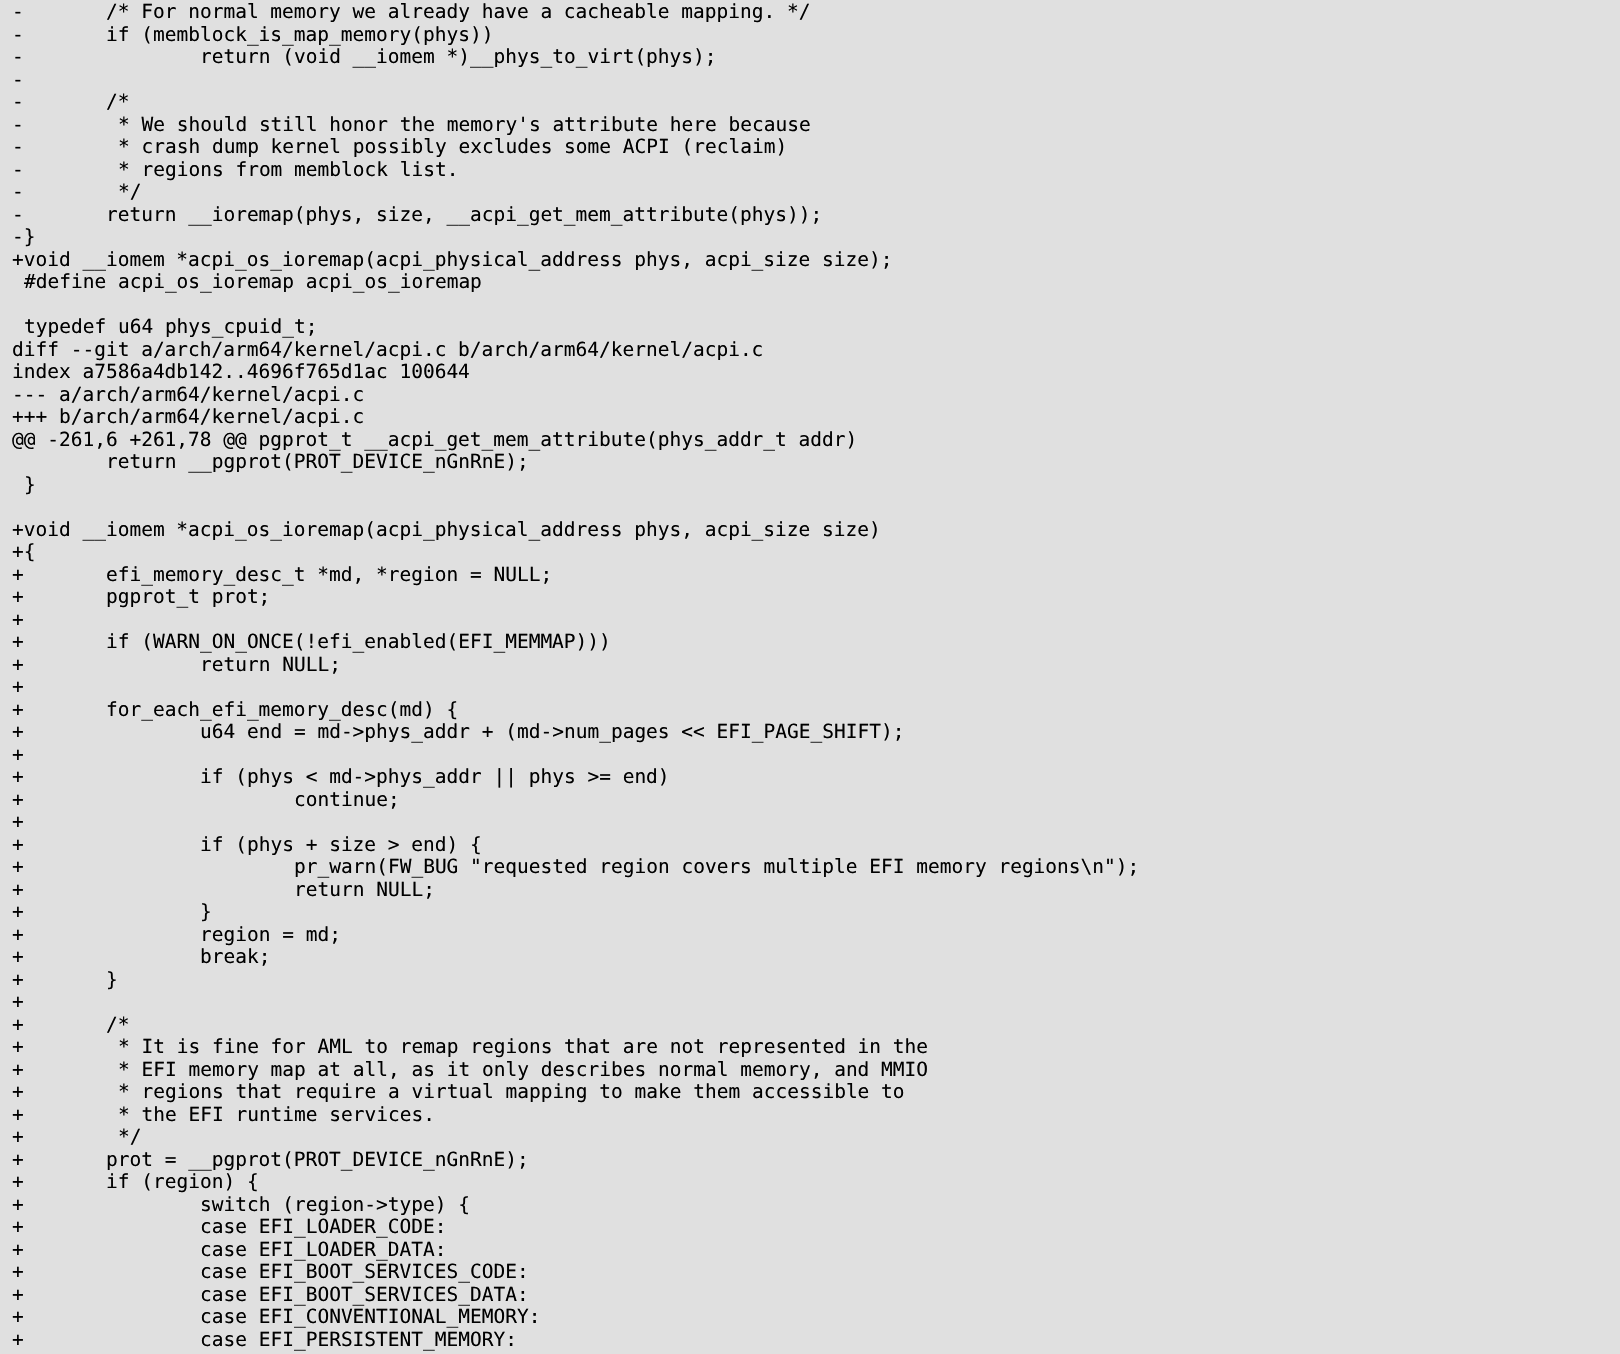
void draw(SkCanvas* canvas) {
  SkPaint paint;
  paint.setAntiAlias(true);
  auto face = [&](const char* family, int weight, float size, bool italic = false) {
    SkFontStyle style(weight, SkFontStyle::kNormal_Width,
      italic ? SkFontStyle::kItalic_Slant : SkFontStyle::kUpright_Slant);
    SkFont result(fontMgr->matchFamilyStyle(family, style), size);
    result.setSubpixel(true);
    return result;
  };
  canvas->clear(0xffe0e0e0);
  auto f0 = face("DejaVu Sans Mono", 400, 19.5f);
  paint.setColor(0xff000000);
  {
    const struct { const char* s; float x, y; } items[] = {
      {"-", 12, 18},
      {"/* For normal memory we already have a cacheable mapping. */", 106, 18},
      {"-", 12, 41},
      {"if (memblock_is_map_memory(phys))", 106, 41},
      {"-", 12, 63},
      {"return (void __iomem *)__phys_to_virt(phys);", 200, 63},
      {"-", 12, 86},
      {"-", 12, 108},
      {"/*", 106, 108},
      {"-", 12, 131},
      {"* We should still honor the memory's attribute here because", 118, 131},
      {"-", 12, 153},
      {"* crash dump kernel possibly excludes some ACPI (reclaim)", 118, 153},
      {"-", 12, 176},
      {"* regions from memblock list.", 118, 176},
      {"-", 12, 198},
      {"*/", 118, 198},
      {"-", 12, 221},
      {"return __ioremap(phys, size, __acpi_get_mem_attribute(phys));", 106, 221},
      {"-}", 12, 243},
      {"+void __iomem *acpi_os_ioremap(acpi_physical_address phys, acpi_size size);", 12, 266},
      {"#define acpi_os_ioremap acpi_os_ioremap", 24, 288},
      {"typedef u64 phys_cpuid_t;", 24, 333},
      {"diff --git a/arch/arm64/kernel/acpi.c b/arch/arm64/kernel/acpi.c", 12, 356},
      {"index a7586a4db142..4696f765d1ac 100644", 12, 378},
      {"--- a/arch/arm64/kernel/acpi.c", 12, 401},
      {"+++ b/arch/arm64/kernel/acpi.c", 12, 423},
      {"@@ -261,6 +261,78 @@ pgprot_t __acpi_get_mem_attribute(phys_addr_t addr)", 12, 446},
      {"return __pgprot(PROT_DEVICE_nGnRnE);", 106, 468},
      {"}", 24, 491},
      {"+void __iomem *acpi_os_ioremap(acpi_physical_address phys, acpi_size size)", 12, 536},
      {"+{", 12, 558},
      {"+", 12, 581},
      {"efi_memory_desc_t *md, *region = NULL;", 106, 581},
      {"+", 12, 603},
      {"pgprot_t prot;", 106, 603},
      {"+", 12, 626},
      {"+", 12, 648},
      {"if (WARN_ON_ONCE(!efi_enabled(EFI_MEMMAP)))", 106, 648},
      {"+", 12, 671},
      {"return NULL;", 200, 671},
      {"+", 12, 693},
      {"+", 12, 716},
      {"for_each_efi_memory_desc(md) {", 106, 716},
      {"+", 12, 738},
      {"u64 end = md->phys_addr + (md->num_pages << EFI_PAGE_SHIFT);", 200, 738},
      {"+", 12, 761},
      {"+", 12, 783},
      {"if (phys < md->phys_addr || phys >= end)", 200, 783},
      {"+", 12, 806},
      {"continue;", 294, 806},
      {"+", 12, 828},
      {"+", 12, 851},
      {"if (phys + size > end) {", 200, 851},
      {"+", 12, 873},
      {"pr_warn(FW_BUG \"requested region covers multiple EFI memory regions\\n\");", 294, 873},
      {"+", 12, 896},
      {"return NULL;", 294, 896},
      {"+", 12, 918},
      {"}", 200, 918},
      {"+", 12, 941},
      {"region = md;", 200, 941},
      {"+", 12, 963},
      {"break;", 200, 963},
      {"+", 12, 986},
      {"}", 106, 986},
      {"+", 12, 1008},
      {"+", 12, 1031},
      {"/*", 106, 1031},
      {"+", 12, 1053},
      {"* It is fine for AML to remap regions that are not represented in the", 118, 1053},
      {"+", 12, 1076},
      {"* EFI memory map at all, as it only describes normal memory, and MMIO", 118, 1076},
      {"+", 12, 1098},
      {"* regions that require a virtual mapping to make them accessible to", 118, 1098},
      {"+", 12, 1121},
      {"* the EFI runtime services.", 118, 1121},
      {"+", 12, 1143},
      {"*/", 118, 1143},
      {"+", 12, 1166},
      {"prot = __pgprot(PROT_DEVICE_nGnRnE);", 106, 1166},
      {"+", 12, 1188},
      {"if (region) {", 106, 1188},
      {"+", 12, 1211},
      {"switch (region->type) {", 200, 1211},
      {"+", 12, 1233},
      {"case EFI_LOADER_CODE:", 200, 1233},
      {"+", 12, 1256},
      {"case EFI_LOADER_DATA:", 200, 1256},
      {"+", 12, 1278},
      {"case EFI_BOOT_SERVICES_CODE:", 200, 1278},
      {"+", 12, 1301},
      {"case EFI_BOOT_SERVICES_DATA:", 200, 1301},
      {"+", 12, 1323},
      {"case EFI_CONVENTIONAL_MEMORY:", 200, 1323},
      {"+", 12, 1346},
      {"case EFI_PERSISTENT_MEMORY:", 200, 1346},
    };
    for (auto [s, x, y] : items) {
      canvas->drawString(s, x, y, f0, paint);
    }
  }
}
